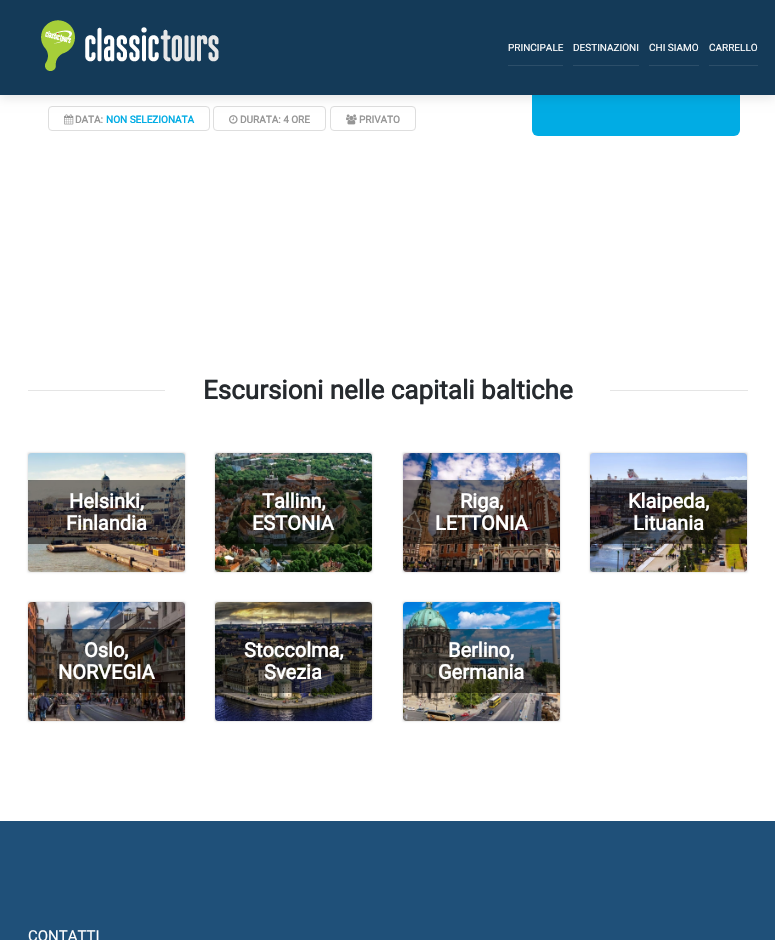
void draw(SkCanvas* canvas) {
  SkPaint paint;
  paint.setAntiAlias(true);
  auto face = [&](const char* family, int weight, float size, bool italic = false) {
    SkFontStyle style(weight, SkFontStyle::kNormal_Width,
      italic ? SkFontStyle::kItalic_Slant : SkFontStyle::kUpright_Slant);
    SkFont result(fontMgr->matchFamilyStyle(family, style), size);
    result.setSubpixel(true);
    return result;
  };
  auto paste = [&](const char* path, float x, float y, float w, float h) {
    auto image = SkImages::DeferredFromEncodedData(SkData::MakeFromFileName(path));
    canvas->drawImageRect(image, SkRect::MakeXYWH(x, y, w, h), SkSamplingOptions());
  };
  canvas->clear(0xffffffff);
  paint.setStroke(true);
  paint.setStrokeWidth(1);
  paint.setColor(0xffdedede);
  canvas->drawRoundRect(SkRect::MakeXYWH(48.5f, 106.5f, 161, 24), 3.5f, 3.5f, paint);
  canvas->drawRoundRect(SkRect::MakeXYWH(213.5f, 106.5f, 112, 24), 3.5f, 3.5f, paint);
  canvas->drawRoundRect(SkRect::MakeXYWH(330.5f, 106.5f, 85, 24), 3.5f, 3.5f, paint);
  paint.setStroke(false);
  paint.setColor(0xff01ace4);
  canvas->drawRoundRect(SkRect::MakeXYWH(532, -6, 208, 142), 6, 6, paint);
  paint.setColor(0x1a000000);
  paint.setMaskFilter(SkMaskFilter::MakeBlur(kNormal_SkBlurStyle, 5));
  canvas->drawRect(SkRect::MakeXYWH(0, 3, 775, 95), paint);
  paint.setMaskFilter(nullptr);
  paint.setColor(0xff143a58);
  canvas->drawRect(SkRect::MakeXYWH(0, 0, 775, 95), paint);
  paste("img/1.png", 41, 20, 178, 51);
  {
    const struct { float x, y, w, h; SkColor color; } items[] = {
      {508, 65, 55, 1, 0xff2c4e69},
      {573, 65, 66, 1, 0xff2c4e69},
      {649, 65, 50, 1, 0xff2c4e69},
      {709, 65, 49, 1, 0xff2c4e69},
    };
    for (auto [x, y, w, h, color] : items) {
      paint.setColor(color);
      canvas->drawRect(SkRect::MakeXYWH(x, y, w, h), paint);
    }
  }
  paste("img/2.png", 64, 114, 10, 11);
  paste("img/3.png", 229, 115, 9, 9);
  paste("img/4.png", 346, 114, 11, 11);
  paint.setColor(0xffe5e5e5);
  canvas->drawRect(SkRect::MakeXYWH(28, 390, 720, 1), paint);
  paint.setColor(0xffffffff);
  canvas->drawRect(SkRect::MakeXYWH(165, 390, 445, 1), paint);
  paint.setColor(0x33000000);
  paint.setMaskFilter(SkMaskFilter::MakeBlur(kNormal_SkBlurStyle, 1));
  canvas->drawRect(SkRect::MakeXYWH(28, 453, 157, 119), paint);
  paint.setMaskFilter(nullptr);
  paste("img/5.png", 28, 453, 157, 119);
  paint.setColor(0x80000000);
  canvas->drawRect(SkRect::MakeXYWH(28, 480, 157, 64), paint);
  paint.setColor(0x33000000);
  paint.setMaskFilter(SkMaskFilter::MakeBlur(kNormal_SkBlurStyle, 1));
  canvas->drawRect(SkRect::MakeXYWH(215, 453, 157, 119), paint);
  paint.setMaskFilter(nullptr);
  paste("img/6.png", 215, 453, 157, 119);
  paint.setColor(0x80000000);
  canvas->drawRect(SkRect::MakeXYWH(215, 480, 157, 64), paint);
  paint.setColor(0x33000000);
  paint.setMaskFilter(SkMaskFilter::MakeBlur(kNormal_SkBlurStyle, 1));
  canvas->drawRect(SkRect::MakeXYWH(403, 453, 157, 119), paint);
  paint.setMaskFilter(nullptr);
  paste("img/7.png", 403, 453, 157, 119);
  paint.setColor(0x80000000);
  canvas->drawRect(SkRect::MakeXYWH(403, 480, 157, 64), paint);
  paint.setColor(0x33000000);
  paint.setMaskFilter(SkMaskFilter::MakeBlur(kNormal_SkBlurStyle, 1));
  canvas->drawRect(SkRect::MakeXYWH(590, 453, 157, 119), paint);
  paint.setMaskFilter(nullptr);
  paste("img/8.png", 590, 453, 157, 119);
  paint.setColor(0x80000000);
  canvas->drawRect(SkRect::MakeXYWH(590, 480, 157, 64), paint);
  paint.setColor(0x33000000);
  paint.setMaskFilter(SkMaskFilter::MakeBlur(kNormal_SkBlurStyle, 1));
  canvas->drawRect(SkRect::MakeXYWH(28, 602, 157, 119), paint);
  paint.setMaskFilter(nullptr);
  paste("img/9.png", 28, 602, 157, 119);
  paint.setColor(0x80000000);
  canvas->drawRect(SkRect::MakeXYWH(28, 629, 157, 64), paint);
  paint.setColor(0x33000000);
  paint.setMaskFilter(SkMaskFilter::MakeBlur(kNormal_SkBlurStyle, 1));
  canvas->drawRect(SkRect::MakeXYWH(215, 602, 157, 119), paint);
  paint.setMaskFilter(nullptr);
  paste("img/10.png", 215, 602, 157, 119);
  paint.setColor(0x80000000);
  canvas->drawRect(SkRect::MakeXYWH(215, 629, 157, 64), paint);
  paint.setColor(0x33000000);
  paint.setMaskFilter(SkMaskFilter::MakeBlur(kNormal_SkBlurStyle, 1));
  canvas->drawRect(SkRect::MakeXYWH(403, 602, 157, 119), paint);
  paint.setMaskFilter(nullptr);
  paste("img/11.png", 403, 602, 157, 119);
  paint.setColor(0x80000000);
  canvas->drawRect(SkRect::MakeXYWH(403, 629, 157, 64), paint);
  paint.setColor(0xff1f5079);
  canvas->drawRect(SkRect::MakeXYWH(0, 821, 775, 119), paint);
  auto f0 = face("Roboto", 400, 10);
  paint.setColor(0xffffffff);
  {
    const struct { const char* s; float x, y; } items[] = {
      {"PRINCIPALE", 508, 51},
      {"DESTINAZIONI", 573, 51},
      {"CHI SIAMO", 649, 51},
      {"CARRELLO", 709, 51},
    };
    for (auto [s, x, y] : items) {
      canvas->drawString(s, x, y, f0, paint);
    }
  }
  auto f1 = face("Roboto", 700, 10);
  paint.setColor(0xff969696);
  canvas->drawString("DATA:", 75, 123, f1, paint);
  paint.setColor(0xff01ace4);
  canvas->drawString("NON SELEZIONATA", 106, 123, f1, paint);
  paint.setColor(0xff969696);
  canvas->drawString("DURATA: 4 ORE", 240, 123, f1, paint);
  canvas->drawString("PRIVATO", 359, 123, f1, paint);
  auto f2 = face("Roboto", 700, 26);
  paint.setColor(0xff262a2e);
  canvas->drawString("Escursioni nelle capitali baltiche", 203, 399, f2, paint);
  auto f3 = face("Roboto", 700, 20);
  paint.setColor(0xffffffff);
  {
    const struct { const char* s; float x, y; } items[] = {
      {"Helsinki,", 69, 508},
      {"Finlandia", 66, 530},
      {"Tallinn,", 262, 508},
      {"ESTONIA", 252, 530},
      {"Riga,", 460, 508},
      {"LETTONIA", 435, 530},
      {"Klaipeda,", 628, 508},
      {"Lituania", 633, 530},
      {"Oslo,", 84, 657},
      {"NORVEGIA", 58, 679},
      {"Stoccolma,", 244, 657},
      {"Svezia", 264, 679},
      {"Berlino,", 448, 657},
      {"Germania", 438, 679},
    };
    for (auto [s, x, y] : items) {
      canvas->drawString(s, x, y, f3, paint);
    }
  }
  auto f4 = face("Roboto", 400, 15);
  canvas->drawString("CONTATTI", 28, 941, f4, paint);
}
